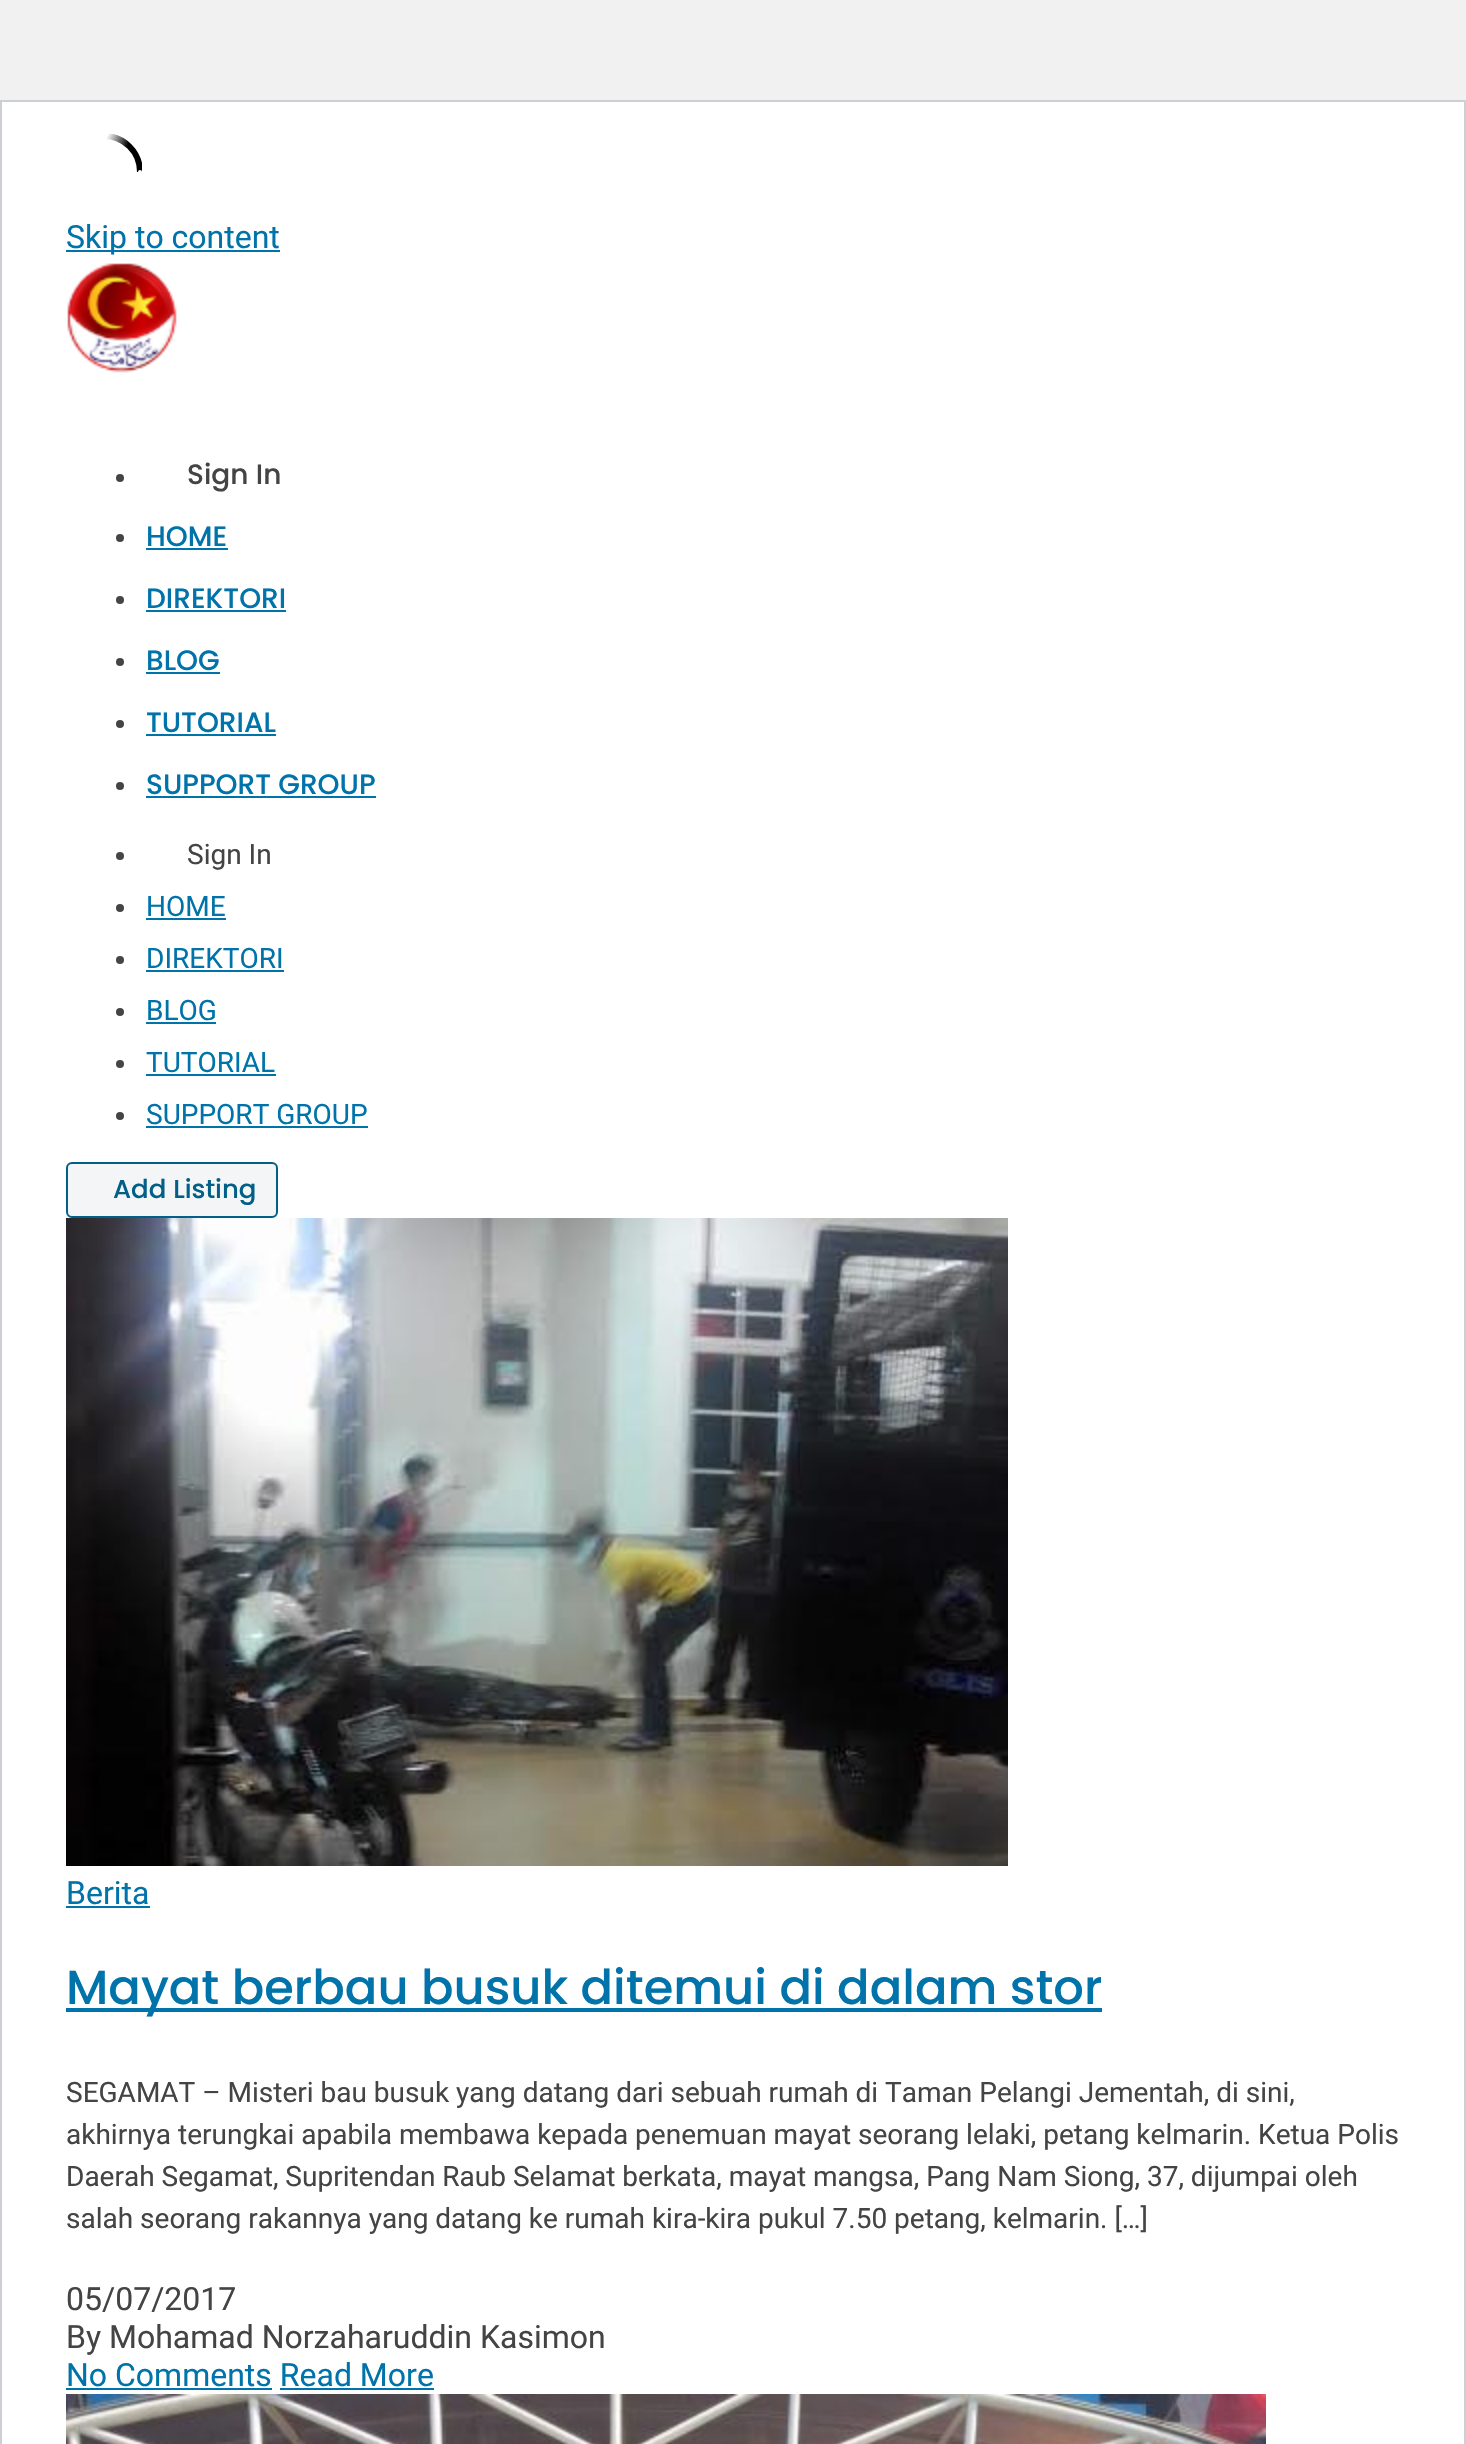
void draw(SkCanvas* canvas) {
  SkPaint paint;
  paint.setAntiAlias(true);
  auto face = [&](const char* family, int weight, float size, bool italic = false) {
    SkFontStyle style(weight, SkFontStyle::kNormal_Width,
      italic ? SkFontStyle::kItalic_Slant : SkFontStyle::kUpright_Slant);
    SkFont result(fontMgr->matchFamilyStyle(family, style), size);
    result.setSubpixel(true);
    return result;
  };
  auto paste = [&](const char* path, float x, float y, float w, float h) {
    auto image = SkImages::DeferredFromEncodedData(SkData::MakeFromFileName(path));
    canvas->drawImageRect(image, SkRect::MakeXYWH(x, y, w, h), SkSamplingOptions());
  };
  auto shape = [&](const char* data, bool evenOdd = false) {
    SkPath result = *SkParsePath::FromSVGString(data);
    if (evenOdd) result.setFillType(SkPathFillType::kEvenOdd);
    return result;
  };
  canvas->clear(0xfff1f1f1);
  paint.setColor(0xffffffff);
  canvas->drawRect(SkRect::MakeXYWH(1, 101, 1464, 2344), paint);
  paint.setStroke(true);
  paint.setStrokeWidth(2);
  paint.setColor(0xffccd0d4);
  canvas->drawRect(SkRect::MakeXYWH(1, 101, 1464, 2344), paint);
  canvas->save();
  canvas->clipRect(SkRect::MakeXYWH(66, 134, 76, 76));
  paint.setStrokeWidth(6);
  {
    const SkColor colors[] = {0xffffffff, 0xff5e5e5e, 0xff000000};
    const float stops[] = {0, 0.63f, 1};
    const SkPoint ends[] = {{107, 136}, {128, 145}};
    paint.setShader(SkGradientShader::MakeLinear(ends, colors, stops, 3, SkTileMode::kClamp));
    paint.setAlpha(255);
  }
  canvas->drawPath(shape("M140 172C140 152 124 136 104 136"), paint);
  canvas->restore();
  paint.setStroke(false);
  paint.setShader(nullptr);
  paint.setColor(0xffffffff);
  canvas->drawCircle(140, 172, 2, paint);
  paint.setColor(0xff0073aa);
  canvas->drawRect(SkRect::MakeXYWH(66, 250, 214, 2), paint);
  paste("img/1.png", 67, 263, 110, 110);
  paint.setColor(0xff444444);
  canvas->drawCircle(120, 478, 4, paint);
  canvas->drawCircle(120, 538, 4, paint);
  paint.setColor(0xff0073aa);
  canvas->drawRect(SkRect::MakeXYWH(146, 548, 82, 2), paint);
  paint.setColor(0xff444444);
  canvas->drawCircle(120, 600, 4, paint);
  paint.setColor(0xff0073aa);
  canvas->drawRect(SkRect::MakeXYWH(146, 610, 140, 2), paint);
  paint.setColor(0xff444444);
  canvas->drawCircle(120, 662, 4, paint);
  paint.setColor(0xff0073aa);
  canvas->drawRect(SkRect::MakeXYWH(146, 672, 74, 2), paint);
  paint.setColor(0xff444444);
  canvas->drawCircle(120, 724, 4, paint);
  paint.setColor(0xff0073aa);
  canvas->drawRect(SkRect::MakeXYWH(146, 734, 130, 2), paint);
  paint.setColor(0xff444444);
  canvas->drawCircle(120, 786, 4, paint);
  paint.setColor(0xff0073aa);
  canvas->drawRect(SkRect::MakeXYWH(146, 796, 230, 2), paint);
  paint.setColor(0xff444444);
  canvas->drawCircle(120, 856, 4, paint);
  canvas->drawCircle(120, 908, 4, paint);
  paint.setColor(0xff0073aa);
  canvas->drawRect(SkRect::MakeXYWH(146, 918, 80, 2), paint);
  paint.setColor(0xff444444);
  canvas->drawCircle(120, 960, 4, paint);
  paint.setColor(0xff0073aa);
  canvas->drawRect(SkRect::MakeXYWH(146, 970, 138, 2), paint);
  paint.setColor(0xff444444);
  canvas->drawCircle(120, 1012, 4, paint);
  paint.setColor(0xff0073aa);
  canvas->drawRect(SkRect::MakeXYWH(146, 1022, 70, 2), paint);
  paint.setColor(0xff444444);
  canvas->drawCircle(120, 1064, 4, paint);
  paint.setColor(0xff0073aa);
  canvas->drawRect(SkRect::MakeXYWH(146, 1074, 130, 2), paint);
  paint.setColor(0xff444444);
  canvas->drawCircle(120, 1116, 4, paint);
  paint.setColor(0xff0073aa);
  canvas->drawRect(SkRect::MakeXYWH(146, 1126, 222, 2), paint);
  paint.setColor(0xfff3f5f6);
  canvas->drawRoundRect(SkRect::MakeXYWH(67, 1163, 210, 54), 5, 5, paint);
  paint.setStroke(true);
  paint.setStrokeWidth(2);
  paint.setColor(0xff016087);
  canvas->drawRoundRect(SkRect::MakeXYWH(67, 1163, 210, 54), 5, 5, paint);
  paste("img/2.png", 66, 1218, 942, 648);
  paint.setStroke(false);
  {
    const struct { float x, y, w, h; SkColor color; } items[] = {
      {66, 1906, 84, 2, 0xff0073aa},
      {66, 2008, 1036, 4, 0xff0073aa},
      {66, 2388, 206, 2, 0xff0073aa},
      {280, 2388, 154, 2, 0xff0073aa},
    };
    for (auto [x, y, w, h, color] : items) {
      paint.setColor(color);
      canvas->drawRect(SkRect::MakeXYWH(x, y, w, h), paint);
    }
  }
  paste("img/3.png", 66, 2394, 1200, 50);
  auto f0 = face("Roboto", 400, 32);
  canvas->drawString("Skip to content", 66, 248, f0, paint);
  auto f1 = face("Poppins", 500, 28);
  paint.setColor(0xff444444);
  canvas->drawString("Sign In", 187, 484, f1, paint);
  paint.setColor(0xff0073aa);
  {
    const struct { const char* s; float x, y; } items[] = {
      {"HOME", 146, 546},
      {"DIREKTORI", 146, 608},
      {"BLOG", 146, 670},
      {"TUTORIAL", 146, 732},
      {"SUPPORT GROUP", 146, 794},
    };
    for (auto [s, x, y] : items) {
      canvas->drawString(s, x, y, f1, paint);
    }
  }
  auto f2 = face("Roboto", 400, 28);
  paint.setColor(0xff444444);
  canvas->drawString("Sign In", 187, 864, f2, paint);
  paint.setColor(0xff0073aa);
  {
    const struct { const char* s; float x, y; } items[] = {
      {"HOME", 146, 916},
      {"DIREKTORI", 146, 968},
      {"BLOG", 146, 1020},
      {"TUTORIAL", 146, 1072},
      {"SUPPORT GROUP", 146, 1124},
    };
    for (auto [s, x, y] : items) {
      canvas->drawString(s, x, y, f2, paint);
    }
  }
  auto f3 = face("Poppins", 500, 26);
  paint.setColor(0xff016087);
  canvas->drawString("Add Listing", 113, 1198, f3, paint);
  paint.setColor(0xff0073aa);
  canvas->drawString("Berita", 66, 1904, f0, paint);
  auto f4 = face("Poppins", 500, 48);
  canvas->drawString("Mayat berbau busuk ditemui di dalam stor", 66, 2004, f4, paint);
  paint.setColor(0xff444444);
  {
    const struct { const char* s; float x, y; } items[] = {
      {"SEGAMAT – Misteri bau busuk yang datang dari sebuah rumah di Taman Pelangi Jementah, di sini,", 66, 2102},
      {"akhirnya terungkai apabila membawa kepada penemuan mayat seorang lelaki, petang kelmarin. Ketua Polis", 66, 2144},
      {"Daerah Segamat, Supritendan Raub Selamat berkata, mayat mangsa, Pang Nam Siong, 37, dijumpai oleh", 66, 2186},
      {"salah seorang rakannya yang datang ke rumah kira-kira pukul 7.50 petang, kelmarin. […]", 66, 2228},
    };
    for (auto [s, x, y] : items) {
      canvas->drawString(s, x, y, f2, paint);
    }
  }
  canvas->drawString("05/07/2017", 66, 2310, f0, paint);
  canvas->drawString("By Mohamad Norzaharuddin Kasimon", 66, 2348, f0, paint);
  paint.setColor(0xff0073aa);
  canvas->drawString("No Comments Read More", 66, 2386, f0, paint);
}
